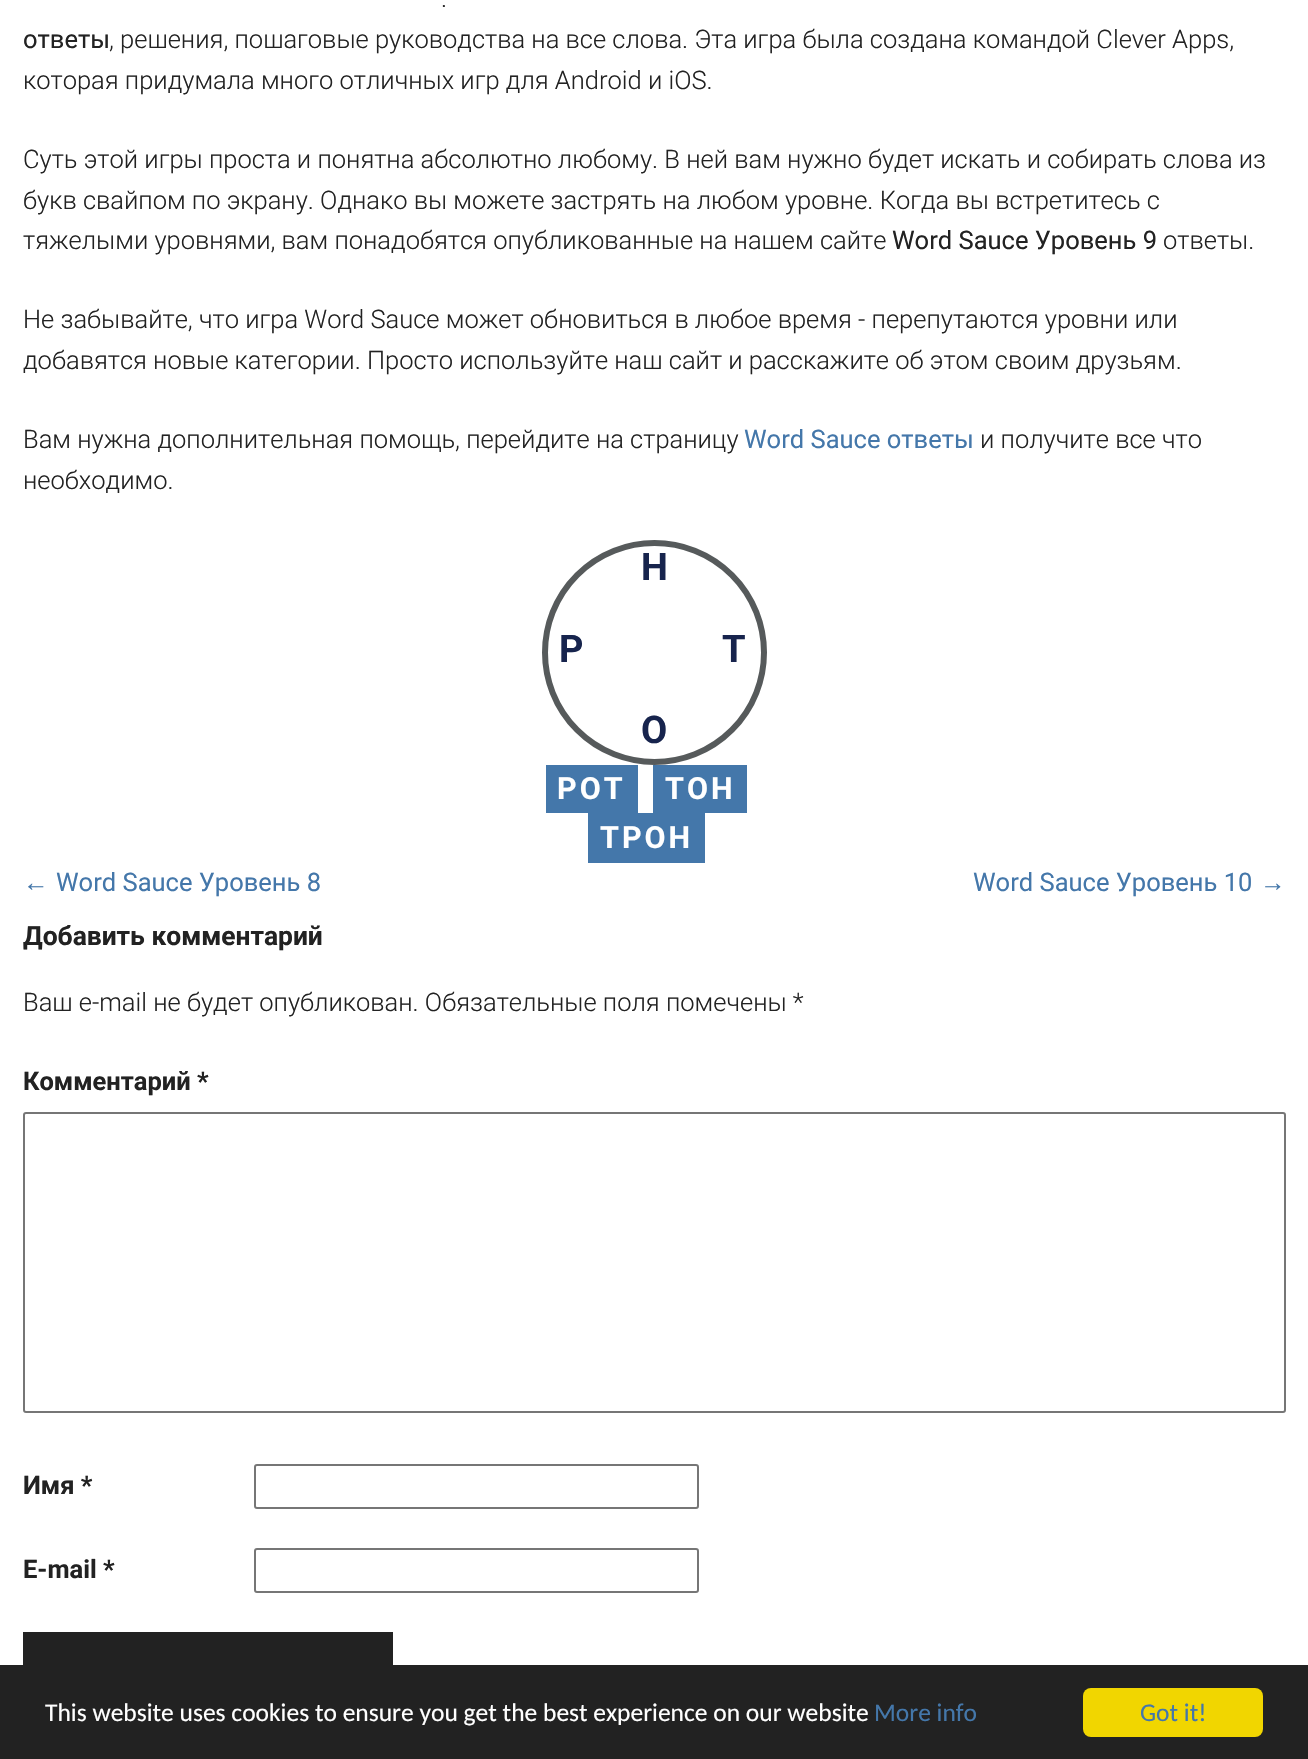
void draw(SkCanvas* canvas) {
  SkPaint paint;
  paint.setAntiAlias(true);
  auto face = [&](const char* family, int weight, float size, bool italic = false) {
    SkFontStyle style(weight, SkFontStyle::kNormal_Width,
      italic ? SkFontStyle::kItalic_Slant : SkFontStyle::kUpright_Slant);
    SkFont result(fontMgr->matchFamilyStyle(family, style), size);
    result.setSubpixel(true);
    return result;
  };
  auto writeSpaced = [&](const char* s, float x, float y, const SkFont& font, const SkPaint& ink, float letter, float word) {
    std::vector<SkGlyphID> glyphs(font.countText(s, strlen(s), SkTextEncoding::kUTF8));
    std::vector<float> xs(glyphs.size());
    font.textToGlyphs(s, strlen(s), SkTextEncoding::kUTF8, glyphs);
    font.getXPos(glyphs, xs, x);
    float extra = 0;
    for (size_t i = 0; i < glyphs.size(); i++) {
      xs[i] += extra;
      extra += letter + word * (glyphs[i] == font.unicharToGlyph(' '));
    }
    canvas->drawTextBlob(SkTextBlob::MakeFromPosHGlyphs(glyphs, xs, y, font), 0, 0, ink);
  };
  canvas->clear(0xffffffff);
  paint.setStroke(true);
  paint.setStrokeWidth(6);
  paint.setColor(0xff565a5b);
  canvas->drawCircle(654.5f, 652.5f, 109.5f, paint);
  paint.setStroke(false);
  {
    const struct { float x, y, w, h; SkColor color; } items[] = {
      {546, 765, 92, 48, 0xff4477aa},
      {653, 765, 94, 48, 0xff4477aa},
      {588, 813, 117, 50, 0xff4477aa},
    };
    for (auto [x, y, w, h, color] : items) {
      paint.setColor(color);
      canvas->drawRect(SkRect::MakeXYWH(x, y, w, h), paint);
    }
  }
  paint.setStroke(true);
  paint.setStrokeWidth(2);
  paint.setColor(0xff767676);
  canvas->drawRoundRect(SkRect::MakeXYWH(24, 1113, 1261, 299), 2, 2, paint);
  canvas->drawRoundRect(SkRect::MakeXYWH(255, 1465, 443, 43), 2, 2, paint);
  canvas->drawRoundRect(SkRect::MakeXYWH(255, 1549, 443, 43), 2, 2, paint);
  paint.setStroke(false);
  paint.setColor(0xff222222);
  canvas->drawRect(SkRect::MakeXYWH(23, 1632, 370, 33), paint);
  canvas->drawRect(SkRect::MakeXYWH(0, 1665, 1308, 94), paint);
  paint.setColor(0xfff1d600);
  canvas->drawRoundRect(SkRect::MakeXYWH(1083, 1688, 180, 49), 8, 8, paint);
  auto f0 = face("Roboto", 300, 25.5f);
  paint.setColor(0xff222222);
  canvas->drawString(".", 441, 7, f0, paint);
  auto f1 = face("Roboto", 400, 25.5f);
  canvas->drawString("ответы", 23, 48, f1, paint);
  {
    const struct { const char* s; float x, y; } items[] = {
      {", решения, пошаговые руководства на все слова. Эта игра была создана командой Clever Apps,", 109, 48},
      {"которая придумала много отличных игр для Android и iOS.", 23, 89},
      {"Суть этой игры проста и понятна абсолютно любому. В ней вам нужно будет искать и собирать слова из", 23, 168},
      {"букв свайпом по экрану. Однако вы можете застрять на любом уровне. Когда вы встретитесь с", 23, 209},
      {"тяжелыми уровнями, вам понадобятся опубликованные на нашем сайте", 23, 249},
    };
    for (auto [s, x, y] : items) {
      canvas->drawString(s, x, y, f0, paint);
    }
  }
  canvas->drawString("Word Sauce Уровень 9", 892, 249, f1, paint);
  {
    const struct { const char* s; float x, y; } items[] = {
      {"ответы.", 1163, 249},
      {"Не забывайте, что игра Word Sauce может обновиться в любое время - перепутаются уровни или", 23, 328},
      {"добавятся новые категории. Просто используйте наш сайт и расскажите об этом своим друзьям.", 23, 369},
      {"Вам нужна дополнительная помощь, перейдите на страницу", 23, 448},
    };
    for (auto [s, x, y] : items) {
      canvas->drawString(s, x, y, f0, paint);
    }
  }
  paint.setColor(0xff4477aa);
  canvas->drawString("Word Sauce ответы", 744, 448, f1, paint);
  paint.setColor(0xff222222);
  canvas->drawString("и получите все что", 980, 448, f0, paint);
  canvas->drawString("необходимо.", 23, 489, f0, paint);
  auto f2 = face("Roboto", 700, 38);
  paint.setColor(0xff17244d);
  {
    const struct { const char* s; float x, y; } items[] = {
      {"Н", 641, 580},
      {"Р", 559, 662},
      {"Т", 722, 662},
      {"О", 641, 743},
    };
    for (auto [s, x, y] : items) {
      canvas->drawString(s, x, y, f2, paint);
    }
  }
  auto f3 = face("Roboto", 700, 30.5f);
  paint.setColor(0xffffffff);
  {
    const struct { const char* s; float x, y; } items[] = {
      {"РОТ", 557, 799},
      {"ТОН", 665, 799},
      {"ТРОН", 600, 848},
    };
    for (auto [s, x, y] : items) {
      writeSpaced(s, x, y, f3, paint, 3, 0);
    }
  }
  auto f4 = face("Liberation Sans", 400, 25.5f);
  paint.setColor(0xff4477aa);
  canvas->drawString("←", 23, 891, f4, paint);
  canvas->drawString("Word Sauce Уровень 8", 56, 891, f1, paint);
  canvas->drawString("Word Sauce Уровень 10", 973, 891, f1, paint);
  canvas->drawString("→", 1260, 891, f4, paint);
  auto f5 = face("Roboto", 700, 26.4f);
  paint.setColor(0xff222222);
  canvas->drawString("Добавить комментарий", 23, 945, f5, paint);
  canvas->drawString("Ваш e-mail не будет опубликован. Обязательные поля помечены *", 23, 1011, f0, paint);
  auto f6 = face("Roboto", 700, 25.5f);
  {
    const struct { const char* s; float x, y; } items[] = {
      {"Комментарий *", 23, 1090},
      {"Имя *", 23, 1494},
      {"E-mail *", 23, 1578},
    };
    for (auto [s, x, y] : items) {
      canvas->drawString(s, x, y, f6, paint);
    }
  }
  auto f7 = face("Carlito", 400, 25.5f);
  paint.setColor(0xffffffff);
  canvas->drawString("This website uses cookies to ensure you get the best experience on our website", 45, 1721, f7, paint);
  paint.setColor(0xff4477aa);
  canvas->drawString("More info", 874, 1721, f7, paint);
  canvas->drawString("Got it!", 1140, 1721, f7, paint);
}
